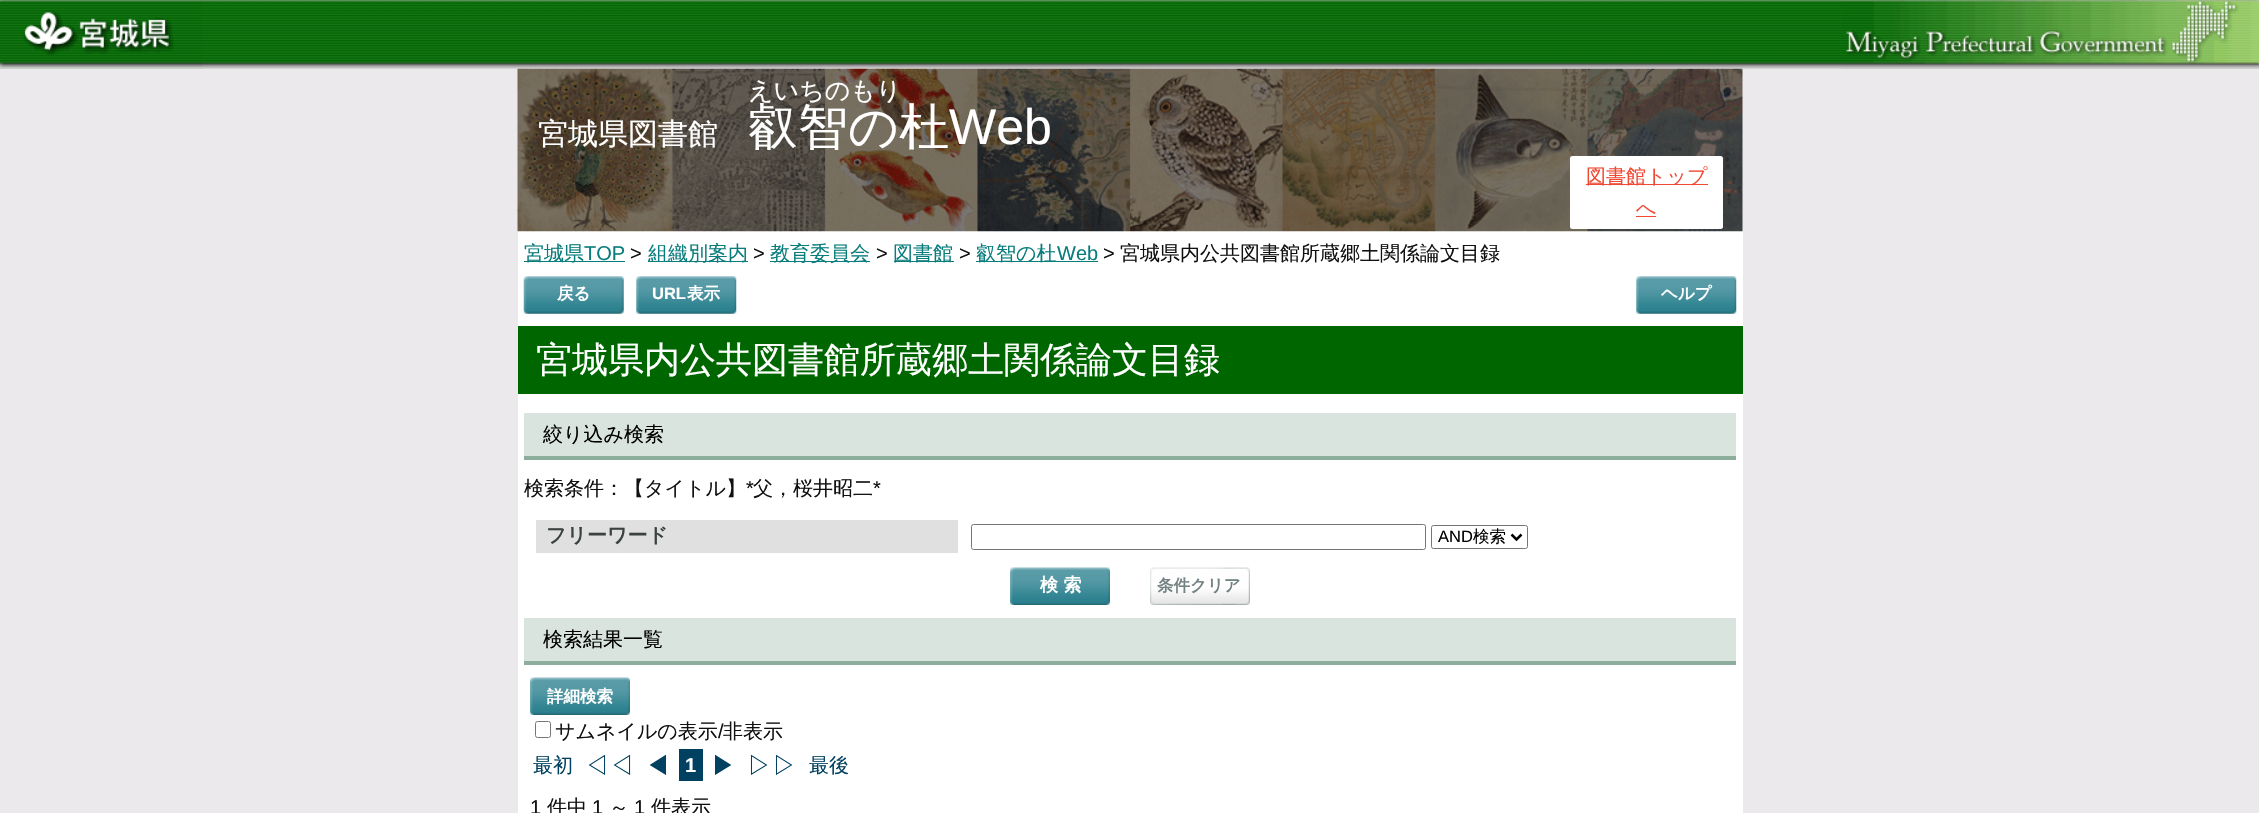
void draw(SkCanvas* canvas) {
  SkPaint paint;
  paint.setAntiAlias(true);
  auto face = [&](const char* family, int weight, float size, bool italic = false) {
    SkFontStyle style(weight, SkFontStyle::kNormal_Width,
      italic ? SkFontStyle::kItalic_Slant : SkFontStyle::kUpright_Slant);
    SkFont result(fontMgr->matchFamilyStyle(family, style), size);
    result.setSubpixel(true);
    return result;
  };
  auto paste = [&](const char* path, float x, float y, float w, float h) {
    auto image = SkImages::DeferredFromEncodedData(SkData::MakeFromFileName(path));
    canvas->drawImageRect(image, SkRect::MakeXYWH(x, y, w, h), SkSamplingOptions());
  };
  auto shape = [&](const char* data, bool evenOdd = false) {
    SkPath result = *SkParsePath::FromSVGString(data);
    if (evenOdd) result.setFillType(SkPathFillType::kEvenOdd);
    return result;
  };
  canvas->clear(0xffece9ec);
  paste("img/1.png", 0, 0, 2259, 69);
  paste("img/2.png", 0, 0, 203, 69);
  paste("img/3.png", 1841, 0, 418, 69);
  paint.setColor(0xffffffff);
  canvas->drawRect(SkRect::MakeXYWH(518, 231, 1225, 582), paint);
  paste("img/4.png", 517, 68, 1226, 164);
  canvas->drawRoundRect(SkRect::MakeXYWH(1570, 156, 153, 73), 2.5f, 2.5f, paint);
  {
    const struct { float x, y, w, h; SkColor color; } items[] = {
      {1586, 184, 122, 1, 0xfff14833},
      {1636, 216, 20, 1, 0xfff14833},
      {524, 261, 101, 1, 0xff097c7c},
      {648, 261, 100, 1, 0xff097c7c},
      {770, 261, 100, 1, 0xff097c7c},
      {894, 261, 60, 1, 0xff097c7c},
      {976, 261, 122, 1, 0xff097c7c},
    };
    for (auto [x, y, w, h, color] : items) {
      paint.setColor(color);
      canvas->drawRect(SkRect::MakeXYWH(x, y, w, h), paint);
    }
  }
  paste("img/5.png", 523, 276, 101, 38);
  paste("img/6.png", 636, 276, 101, 38);
  paste("img/6.png", 1636, 276, 101, 38);
  {
    const struct { float x, y, w, h; SkColor color; } items[] = {
      {518, 326, 1225, 68, 0xff006600},
      {524, 413, 1212, 43, 0xffd9e4de},
      {524, 456, 1212, 4, 0xff8dad9d},
      {536, 520, 422, 33, 0xffe0e0e0},
    };
    for (auto [x, y, w, h, color] : items) {
      paint.setColor(color);
      canvas->drawRect(SkRect::MakeXYWH(x, y, w, h), paint);
    }
  }
  paint.setStroke(true);
  paint.setStrokeWidth(1);
  paint.setColor(0xff767676);
  canvas->drawRoundRect(SkRect::MakeXYWH(971.5f, 524.5f, 454, 25), 2, 2, paint);
  canvas->drawRoundRect(SkRect::MakeXYWH(1431.5f, 525.5f, 96, 23), 2, 2, paint);
  paint.setStrokeWidth(2.5f);
  paint.setColor(0xff000000);
  canvas->drawPath(shape("M1511.5 534.5L1516.5 539.5L1521.5 534.5"), paint);
  paste("img/7.png", 1010, 567, 100, 38);
  paste("img/8.png", 1150, 567, 100, 38);
  paint.setStroke(false);
  paint.setColor(0xffd9e4de);
  canvas->drawRect(SkRect::MakeXYWH(524, 618, 1212, 43), paint);
  paint.setColor(0xff8dad9d);
  canvas->drawRect(SkRect::MakeXYWH(524, 661, 1212, 4), paint);
  paste("img/9.png", 530, 677, 100, 38);
  paint.setStroke(true);
  paint.setStrokeWidth(1);
  paint.setColor(0xff767676);
  canvas->drawRoundRect(SkRect::MakeXYWH(535.5f, 721.5f, 15, 16), 2, 2, paint);
  paint.setStroke(false);
  paint.setColor(0xff004060);
  canvas->drawRect(SkRect::MakeXYWH(679, 749, 24, 32), paint);
  auto f0 = face("WenQuanYi Zen Hei", 500, 30);
  paint.setColor(0xffffffff);
  canvas->drawString("宮城県図書館", 538, 144, f0, paint);
  auto f1 = face("WenQuanYi Zen Hei", 500, 25);
  canvas->drawString("えいちのもり", 748, 99, f1, paint);
  auto f2 = face("WenQuanYi Zen Hei", 500, 50);
  canvas->drawString("叡智の杜", 748, 144, f2, paint);
  auto f3 = face("Liberation Sans", 400, 50);
  canvas->drawString("Web", 949, 144, f3, paint);
  auto f4 = face("WenQuanYi Zen Hei", 500, 20);
  paint.setColor(0xfff14833);
  canvas->drawString("図書館トップ", 1586, 183, f4, paint);
  canvas->drawString("へ", 1636, 215, f4, paint);
  paint.setColor(0xff097c7c);
  canvas->drawString("宮城県", 524, 260, f4, paint);
  auto f5 = face("Liberation Sans", 400, 20);
  canvas->drawString("TOP", 584, 260, f5, paint);
  paint.setColor(0xff111111);
  canvas->drawString(">", 630, 260, f5, paint);
  paint.setColor(0xff097c7c);
  canvas->drawString("組織別案内", 648, 260, f4, paint);
  paint.setColor(0xff111111);
  canvas->drawString(">", 753, 260, f5, paint);
  paint.setColor(0xff097c7c);
  canvas->drawString("教育委員会", 770, 260, f4, paint);
  paint.setColor(0xff111111);
  canvas->drawString(">", 876, 260, f5, paint);
  paint.setColor(0xff097c7c);
  canvas->drawString("図書館", 893, 260, f4, paint);
  paint.setColor(0xff111111);
  canvas->drawString(">", 959, 260, f5, paint);
  paint.setColor(0xff097c7c);
  canvas->drawString("叡智の杜", 976, 260, f4, paint);
  canvas->drawString("Web", 1057, 260, f5, paint);
  paint.setColor(0xff111111);
  canvas->drawString(">", 1103, 260, f5, paint);
  canvas->drawString("宮城県内公共図書館所蔵郷土関係論文目録", 1120, 260, f4, paint);
  auto f6 = face("WenQuanYi Zen Hei", 700, 16.5f);
  paint.setColor(0xffffffff);
  canvas->drawString("戻る", 557, 299, f6, paint);
  auto f7 = face("Liberation Sans", 700, 16.5f);
  canvas->drawString("URL", 652, 299, f7, paint);
  canvas->drawString("表示", 687, 299, f6, paint);
  canvas->drawString("ヘルプ", 1661, 299, f6, paint);
  auto f8 = face("WenQuanYi Zen Hei", 500, 36);
  canvas->drawString("宮城県内公共図書館所蔵郷土関係論文目録", 536, 372, f8, paint);
  paint.setColor(0xff000000);
  canvas->drawString("絞り込み検索", 543, 441, f4, paint);
  paint.setColor(0xff111111);
  canvas->drawString("検索条件：【タイトル】", 524, 495, f4, paint);
  canvas->drawString("*", 746, 495, f5, paint);
  canvas->drawString("父，桜井昭二", 753, 495, f4, paint);
  canvas->drawString("*", 873, 495, f5, paint);
  auto f9 = face("WenQuanYi Zen Hei", 700, 20);
  paint.setColor(0xff3c4242);
  canvas->drawString("フリーワード", 546, 542, f9, paint);
  auto f10 = face("Liberation Sans", 400, 16.5f);
  paint.setColor(0xff000000);
  canvas->drawString("AND", 1438, 542, f10, paint);
  auto f11 = face("WenQuanYi Zen Hei", 500, 16.5f);
  canvas->drawString("検索", 1473, 542, f11, paint);
  auto f12 = face("WenQuanYi Zen Hei", 700, 18);
  paint.setColor(0xffffffff);
  canvas->drawString("検 索", 1040, 591, f12, paint);
  paint.setColor(0xff738282);
  canvas->drawString("条件クリア", 1157, 591, f6, paint);
  paint.setColor(0xff000000);
  canvas->drawString("検索結果一覧", 543, 646, f4, paint);
  paint.setColor(0xffffffff);
  canvas->drawString("詳細検索", 547, 702, f6, paint);
  paint.setColor(0xff111111);
  canvas->drawString("サムネイルの表示", 555, 738, f4, paint);
  canvas->drawString("/", 718, 738, f5, paint);
  canvas->drawString("非表示", 723, 738, f4, paint);
  paint.setColor(0xff004060);
  canvas->drawString("最初", 533, 772, f4, paint);
  canvas->drawString("◁◁", 584, 774, f1, paint);
  canvas->drawString("◀", 645, 774, f1, paint);
  auto f13 = face("Liberation Sans", 700, 20);
  paint.setColor(0xffffffff);
  canvas->drawString("1", 685, 772, f13, paint);
  paint.setColor(0xff004060);
  canvas->drawString("▶", 711, 774, f1, paint);
  canvas->drawString("▷▷", 747, 774, f1, paint);
  canvas->drawString("最後", 809, 772, f4, paint);
  paint.setColor(0xff111111);
  canvas->drawString("1", 530, 814, f5, paint);
  canvas->drawString("件中", 547, 814, f4, paint);
  canvas->drawString("1", 592, 814, f5, paint);
  canvas->drawString("～", 609, 814, f4, paint);
  canvas->drawString("1", 634, 814, f5, paint);
  canvas->drawString("件表示", 651, 814, f4, paint);
}
